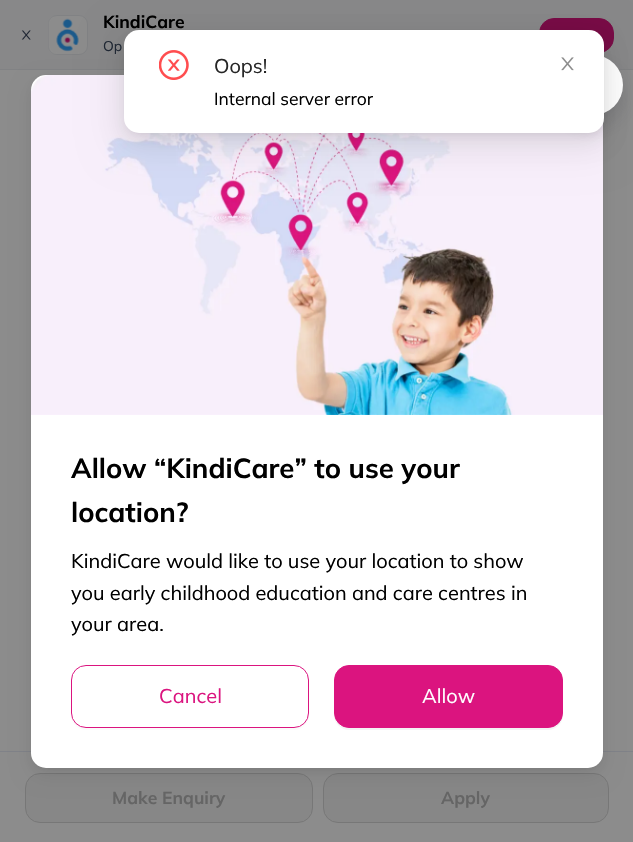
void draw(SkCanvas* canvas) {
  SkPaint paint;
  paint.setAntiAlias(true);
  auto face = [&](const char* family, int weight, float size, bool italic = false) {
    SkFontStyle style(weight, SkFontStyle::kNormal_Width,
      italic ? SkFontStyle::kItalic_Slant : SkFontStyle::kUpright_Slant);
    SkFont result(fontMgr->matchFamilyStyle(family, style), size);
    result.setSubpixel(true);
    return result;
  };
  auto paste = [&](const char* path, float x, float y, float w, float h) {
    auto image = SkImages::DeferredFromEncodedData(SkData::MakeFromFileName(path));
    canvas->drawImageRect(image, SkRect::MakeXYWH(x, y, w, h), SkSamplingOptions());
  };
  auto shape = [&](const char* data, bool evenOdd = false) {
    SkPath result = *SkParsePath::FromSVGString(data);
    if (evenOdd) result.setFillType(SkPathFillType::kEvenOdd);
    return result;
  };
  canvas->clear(0xff8c8c8c);
  paint.setColor(0xff888889);
  canvas->drawRect(SkRect::MakeXYWH(0, 0, 633, 69), paint);
  paint.setColor(0xff818284);
  canvas->drawRect(SkRect::MakeXYWH(0, 69, 633, 1), paint);
  paste("img/1.png", 21, 30, 10, 10);
  paint.setColor(0xff8c8c8c);
  canvas->drawRoundRect(SkRect::MakeXYWH(48.5f, 15.5f, 39, 39), 8.5f, 8.5f, paint);
  paint.setStroke(true);
  paint.setStrokeWidth(1);
  paint.setColor(0xff818284);
  canvas->drawRoundRect(SkRect::MakeXYWH(48.5f, 15.5f, 39, 39), 8.5f, 8.5f, paint);
  paste("img/2.png", 48, 17, 31, 37);
  paint.setStroke(false);
  paint.setColor(0xff780b46);
  canvas->drawRoundRect(SkRect::MakeXYWH(539.5f, 18.5f, 74, 34), 14.5f, 14.5f, paint);
  paint.setStroke(true);
  canvas->drawRoundRect(SkRect::MakeXYWH(539.5f, 18.5f, 74, 34), 14.5f, 14.5f, paint);
  paint.setStroke(false);
  paint.setColor(0xff808288);
  canvas->drawRect(SkRect::MakeXYWH(0, 751, 633, 1), paint);
  paint.setColor(0xff878787);
  canvas->drawRoundRect(SkRect::MakeXYWH(25.5f, 773.5f, 287, 49), 14.5f, 14.5f, paint);
  paint.setStroke(true);
  paint.setColor(0xff777777);
  canvas->drawRoundRect(SkRect::MakeXYWH(25.5f, 773.5f, 287, 49), 14.5f, 14.5f, paint);
  paint.setStroke(false);
  paint.setColor(0xff878787);
  canvas->drawRoundRect(SkRect::MakeXYWH(323.5f, 773.5f, 285, 49), 14.5f, 14.5f, paint);
  paint.setStroke(true);
  paint.setColor(0xff777777);
  canvas->drawRoundRect(SkRect::MakeXYWH(323.5f, 773.5f, 285, 49), 14.5f, 14.5f, paint);
  paint.setStroke(false);
  paint.setColor(0x14000000);
  paint.setMaskFilter(SkMaskFilter::MakeBlur(kNormal_SkBlurStyle, 10));
  canvas->drawRoundRect(SkRect::MakeXYWH(31, 83, 572, 692), 15, 15, paint);
  paint.setMaskFilter(nullptr);
  paint.setColor(0x1f000000);
  paint.setMaskFilter(SkMaskFilter::MakeBlur(kNormal_SkBlurStyle, 4));
  canvas->drawRoundRect(SkRect::MakeXYWH(36, 84, 562, 682), 10, 10, paint);
  paint.setMaskFilter(nullptr);
  paint.setColor(0xffffffff);
  canvas->drawRoundRect(SkRect::MakeXYWH(31, 75, 572, 693), 15, 15, paint);
  paste("img/5.png", 31, 75, 572, 340);
  paint.setColor(0x29272833);
  paint.setMaskFilter(SkMaskFilter::MakeBlur(kNormal_SkBlurStyle, 10));
  canvas->drawRoundRect(SkRect::MakeXYWH(563, 65, 60, 60), 30, 30, paint);
  paint.setMaskFilter(nullptr);
  paint.setColor(0xffffffff);
  canvas->drawCircle(593, 85, 30, paint);
  paint.setColor(0x0d000000);
  paint.setMaskFilter(SkMaskFilter::MakeBlur(kNormal_SkBlurStyle, 17.5f));
  canvas->drawRoundRect(SkRect::MakeXYWH(114, 31, 500, 123), 25, 25, paint);
  paint.setMaskFilter(nullptr);
  paint.setColor(0x14000000);
  paint.setMaskFilter(SkMaskFilter::MakeBlur(kNormal_SkBlurStyle, 10));
  canvas->drawRoundRect(SkRect::MakeXYWH(124, 38, 480, 102), 15, 15, paint);
  paint.setMaskFilter(nullptr);
  paint.setColor(0x1f000000);
  paint.setMaskFilter(SkMaskFilter::MakeBlur(kNormal_SkBlurStyle, 4));
  canvas->drawRoundRect(SkRect::MakeXYWH(129, 39, 470, 92), 10, 10, paint);
  paint.setMaskFilter(nullptr);
  paint.setColor(0xffffffff);
  canvas->drawRoundRect(SkRect::MakeXYWH(124, 30, 480, 103), 15, 15, paint);
  paste("img/3.png", 159, 50, 30, 30);
  paste("img/4.png", 561, 57, 13, 14);
  paint.setColor(0xfffbfbfb);
  canvas->drawPath(shape("M71 680V715C71 723 78 730 86 730H294C302 730 309 723 309 715V680V712C309 721 302 728 294 728H86C78 728 71 721 71 712Z"), paint);
  paint.setStroke(true);
  paint.setColor(0xffdb147f);
  canvas->drawRoundRect(SkRect::MakeXYWH(71.5f, 665.5f, 237, 62), 14.5f, 14.5f, paint);
  paint.setStroke(false);
  paint.setColor(0xfff4f4f4);
  canvas->drawPath(shape("M334 715C334 723 341 730 349 730H548C556 730 563 723 563 715V683L562 679V712C562 721 556 728 548 728H349C341 728 335 722 334 715Z"), paint);
  paint.setColor(0xffdb147f);
  canvas->drawRoundRect(SkRect::MakeXYWH(334.5f, 665.5f, 228, 62), 14.5f, 14.5f, paint);
  paint.setStroke(true);
  canvas->drawRoundRect(SkRect::MakeXYWH(334.5f, 665.5f, 228, 62), 14.5f, 14.5f, paint);
  auto f0 = face("Mulish", 700, 17.5f);
  paint.setStroke(false);
  paint.setColor(0xff000000);
  canvas->drawString("KindiCare", 103, 28, f0, paint);
  auto f1 = face("Mulish", 400, 14);
  paint.setColor(0xff1f2733);
  canvas->drawString("Op", 103, 51, f1, paint);
  paint.setColor(0xff656565);
  canvas->drawString("Make Enquiry", 112, 804, f0, paint);
  canvas->drawString("Apply", 441, 804, f0, paint);
  auto f2 = face("Mulish", 400, 20);
  paint.setColor(0xff262626);
  canvas->drawString("Oops!", 214, 73, f2, paint);
  auto f3 = face("Mulish", 400, 17.5f);
  paint.setColor(0xff000000);
  canvas->drawString("Internal server error", 214, 105, f3, paint);
  auto f4 = face("Mulish", 700, 27.5f);
  canvas->drawString("Allow “KindiCare” to use your", 71, 478, f4, paint);
  canvas->drawString("location?", 71, 522, f4, paint);
  {
    const struct { const char* s; float x, y; } items[] = {
      {"KindiCare would like to use your location to show", 71, 568},
      {"you early childhood education and care centres in", 71, 600},
      {"your area.", 71, 631},
    };
    for (auto [s, x, y] : items) {
      canvas->drawString(s, x, y, f2, paint);
    }
  }
  paint.setColor(0xffdb147f);
  canvas->drawString("Cancel", 159, 703, f2, paint);
  paint.setColor(0xffffffff);
  canvas->drawString("Allow", 422, 703, f2, paint);
}
